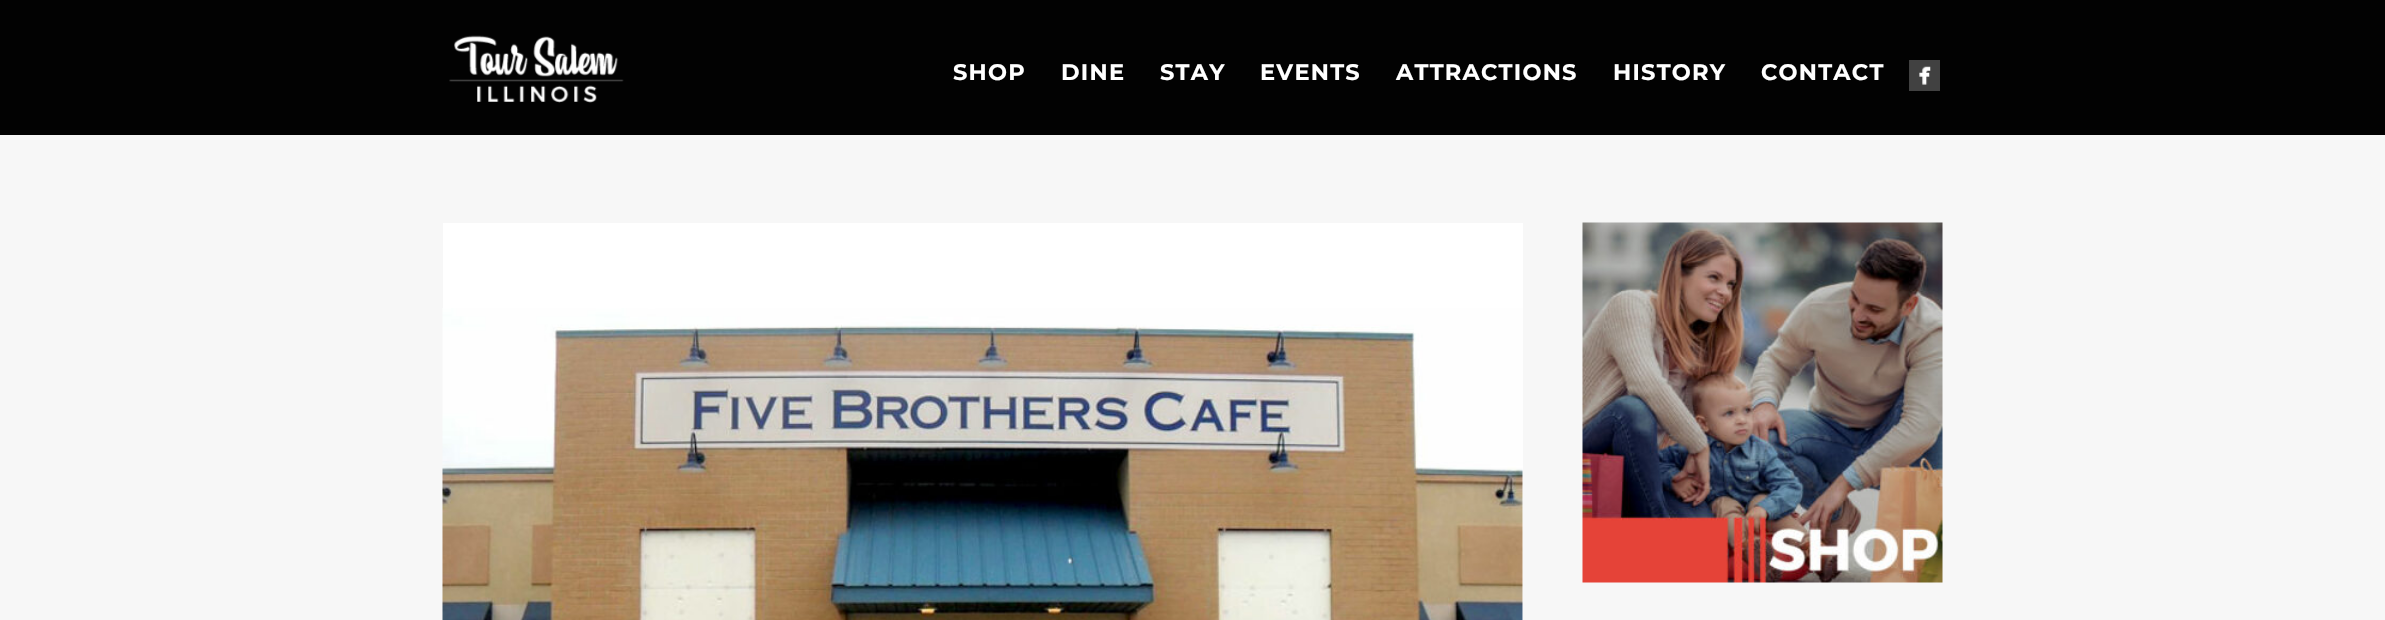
void draw(SkCanvas* canvas) {
  SkPaint paint;
  paint.setAntiAlias(true);
  auto face = [&](const char* family, int weight, float size, bool italic = false) {
    SkFontStyle style(weight, SkFontStyle::kNormal_Width,
      italic ? SkFontStyle::kItalic_Slant : SkFontStyle::kUpright_Slant);
    SkFont result(fontMgr->matchFamilyStyle(family, style), size);
    result.setSubpixel(true);
    return result;
  };
  auto writeSpaced = [&](const char* s, float x, float y, const SkFont& font, const SkPaint& ink, float letter, float word) {
    std::vector<SkGlyphID> glyphs(font.countText(s, strlen(s), SkTextEncoding::kUTF8));
    std::vector<float> xs(glyphs.size());
    font.textToGlyphs(s, strlen(s), SkTextEncoding::kUTF8, glyphs);
    font.getXPos(glyphs, xs, x);
    float extra = 0;
    for (size_t i = 0; i < glyphs.size(); i++) {
      xs[i] += extra;
      extra += letter + word * (glyphs[i] == font.unicharToGlyph(' '));
    }
    canvas->drawTextBlob(SkTextBlob::MakeFromPosHGlyphs(glyphs, xs, y, font), 0, 0, ink);
  };
  auto paste = [&](const char* path, float x, float y, float w, float h) {
    auto image = SkImages::DeferredFromEncodedData(SkData::MakeFromFileName(path));
    canvas->drawImageRect(image, SkRect::MakeXYWH(x, y, w, h), SkSamplingOptions());
  };
  canvas->clear(0xfff7f7f7);
  paint.setColor(0xff020202);
  canvas->drawRect(SkRect::MakeXYWH(0, 0, 2385, 135), paint);
  paste("img/1.png", 449, 35, 175, 68);
  paint.setColor(0xff414141);
  canvas->drawRect(SkRect::MakeXYWH(1909, 60, 31, 31), paint);
  paste("img/2.png", 1919, 66, 12, 19);
  paint.setColor(0xffffffff);
  canvas->drawRect(SkRect::MakeXYWH(443, 223, 1080, 397), paint);
  paste("img/3.png", 442, 308, 1081, 312);
  paste("img/4.png", 1582, 222, 361, 361);
  auto f0 = face("Montserrat", 700, 22.5f);
  {
    const struct { const char* s; float x, y; } items[] = {
      {"SHOP", 953, 80},
      {"DINE", 1061, 80},
      {"STAY", 1160, 80},
      {"EVENTS", 1260, 80},
      {"ATTRACTIONS", 1396, 80},
      {"HISTORY", 1613, 80},
      {"CONTACT", 1761, 80},
    };
    for (auto [s, x, y] : items) {
      writeSpaced(s, x, y, f0, paint, 1.25f, 0);
    }
  }
}
